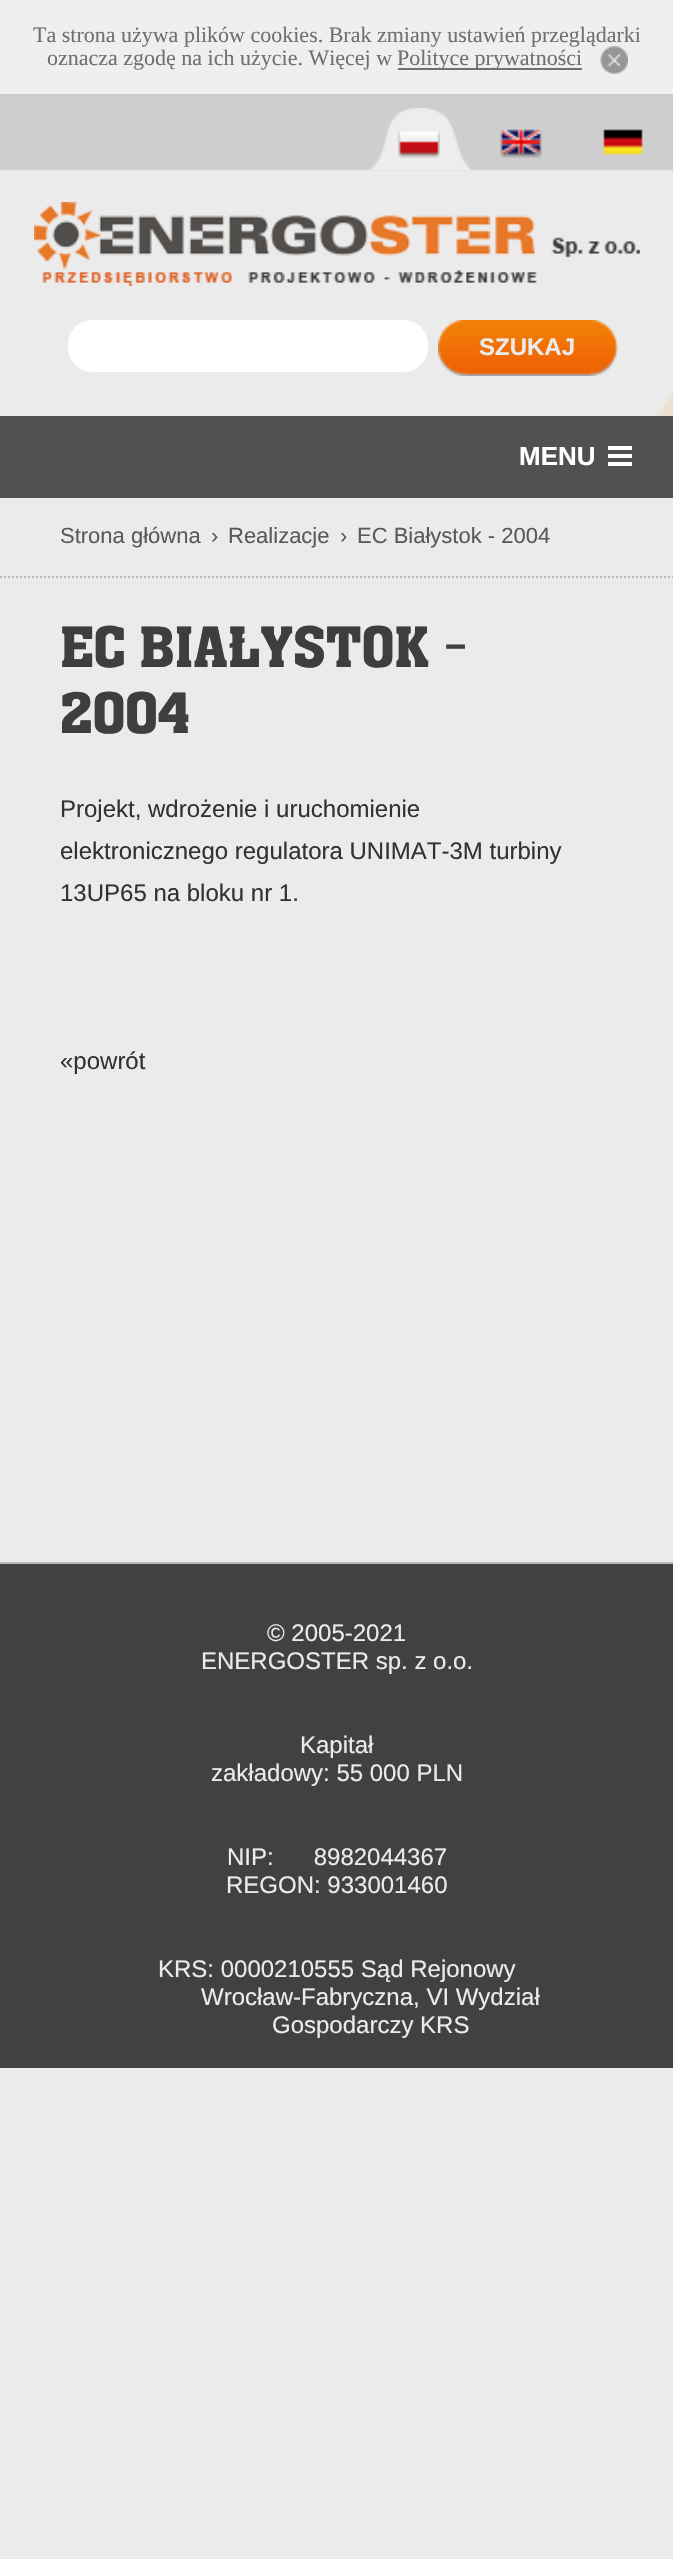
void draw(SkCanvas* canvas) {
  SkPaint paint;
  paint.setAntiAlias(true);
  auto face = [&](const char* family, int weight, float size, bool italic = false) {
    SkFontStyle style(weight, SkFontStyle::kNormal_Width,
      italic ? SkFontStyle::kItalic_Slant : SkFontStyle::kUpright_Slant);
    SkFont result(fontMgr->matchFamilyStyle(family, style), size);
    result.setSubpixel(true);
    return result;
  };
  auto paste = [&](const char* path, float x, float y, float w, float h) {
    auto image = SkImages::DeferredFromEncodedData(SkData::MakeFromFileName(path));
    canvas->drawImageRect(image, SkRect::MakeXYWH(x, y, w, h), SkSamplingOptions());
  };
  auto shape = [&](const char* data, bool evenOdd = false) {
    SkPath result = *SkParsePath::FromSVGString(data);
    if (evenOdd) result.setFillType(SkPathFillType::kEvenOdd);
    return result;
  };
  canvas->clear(0xffebebeb);
  {
    const struct { float x, y, w, h; SkColor color; } items[] = {
      {0, 0, 673, 94, 0xffefefef},
      {0, 94, 673, 2, 0xffcccccc},
      {398, 68, 184, 2, 0xff707070},
    };
    for (auto [x, y, w, h, color] : items) {
      paint.setColor(color);
      canvas->drawRect(SkRect::MakeXYWH(x, y, w, h), paint);
    }
  }
  paste("img/2.png", 0, 96, 673, 320);
  paste("img/3.png", 369, 108, 101, 62);
  paste("img/4.png", 398, 131, 42, 27);
  paste("img/5.png", 500, 129, 42, 29);
  paste("img/6.png", 603, 129, 40, 26);
  paste("img/7.png", 34, 202, 606, 84);
  paint.setColor(0xffffffff);
  canvas->drawRoundRect(SkRect::MakeXYWH(68, 320, 360, 52), 24, 24, paint);
  paste("img/8.png", 438, 320, 180, 56);
  {
    const struct { float x, y, w, h; SkColor color; } items[] = {
      {0, 416, 673, 82, 0xff515151},
      {608, 446, 24, 4, 0xffffffff},
      {608, 454, 24, 4, 0xffffffff},
      {608, 462, 24, 4, 0xffffffff},
    };
    for (auto [x, y, w, h, color] : items) {
      paint.setColor(color);
      canvas->drawRect(SkRect::MakeXYWH(x, y, w, h), paint);
    }
  }
  paint.setStroke(true);
  paint.setStrokeWidth(2);
  paint.setColor(0xffbababa);
  paint.setPathEffect(SkDashPathEffect::Make({{2, 2}}, 0));
  canvas->drawPath(shape("M0 577H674"), paint);
  paint.setPathEffect(nullptr);
  paint.setStroke(false);
  paint.setColor(0xff414141);
  canvas->drawRect(SkRect::MakeXYWH(0, 1564, 673, 504), paint);
  paint.setColor(0xffb7b7b7);
  canvas->drawRect(SkRect::MakeXYWH(0, 1562, 673, 2), paint);
  auto f0 = face("Liberation Serif", 400, 22);
  paint.setColor(0xff707070);
  {
    const struct { const char* s; float x, y; } items[] = {
      {"Ta strona używa plików cookies. Brak zmiany ustawień przeglądarki", 33, 42},
      {"oznacza zgodę na ich użycie. Więcej w", 47, 65},
      {"Polityce prywatności", 397, 65},
    };
    for (auto [s, x, y] : items) {
      canvas->drawString(s, x, y, f0, paint);
    }
  }
  paste("img/1.png", 600, 46, 28, 28);
  auto f1 = face("Liberation Sans", 700, 24);
  paint.setColor(0xffebebeb);
  canvas->drawString("SZUKAJ", 479, 355, f1, paint);
  auto f2 = face("Liberation Sans", 700, 26);
  paint.setColor(0xffffffff);
  canvas->drawString("MENU", 519, 465, f2, paint);
  auto f3 = face("Liberation Sans", 400, 22);
  paint.setColor(0xff595959);
  {
    const struct { const char* s; float x, y; } items[] = {
      {"Strona główna", 60, 543},
      {"›", 211, 543},
      {"Realizacje", 228, 543},
      {"›", 340, 543},
      {"EC Białystok - 2004", 357, 543},
    };
    for (auto [s, x, y] : items) {
      canvas->drawString(s, x, y, f3, paint);
    }
  }
  auto f4 = face("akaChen", 400, 58);
  paint.setColor(0xff3e3e3e);
  canvas->drawString("EC BIAŁYSTOK -", 60, 667, f4, paint);
  canvas->drawString("2004", 60, 733, f4, paint);
  auto f5 = face("Liberation Sans", 400, 24);
  paint.setColor(0xff323232);
  {
    const struct { const char* s; float x, y; } items[] = {
      {"Projekt, wdrożenie i uruchomienie", 60, 817},
      {"elektronicznego regulatora UNIMAT-3M turbiny", 60, 859},
      {"13UP65 na bloku nr 1.", 60, 901},
      {"«powrót", 60, 1069},
    };
    for (auto [s, x, y] : items) {
      canvas->drawString(s, x, y, f5, paint);
    }
  }
  paint.setColor(0xffebebeb);
  {
    const struct { const char* s; float x, y; } items[] = {
      {"© 2005-2021", 267, 1641},
      {"ENERGOSTER sp. z o.o.", 201, 1669},
      {"Kapitał", 300, 1753},
      {"zakładowy: 55 000 PLN", 211, 1781},
      {"NIP:      8982044367", 227, 1865},
      {"REGON: 933001460", 226, 1893},
      {"KRS: 0000210555 Sąd Rejonowy", 158, 1977},
      {"Wrocław-Fabryczna, VI Wydział", 201, 2005},
      {"Gospodarczy KRS", 272, 2033},
    };
    for (auto [s, x, y] : items) {
      canvas->drawString(s, x, y, f5, paint);
    }
  }
}
